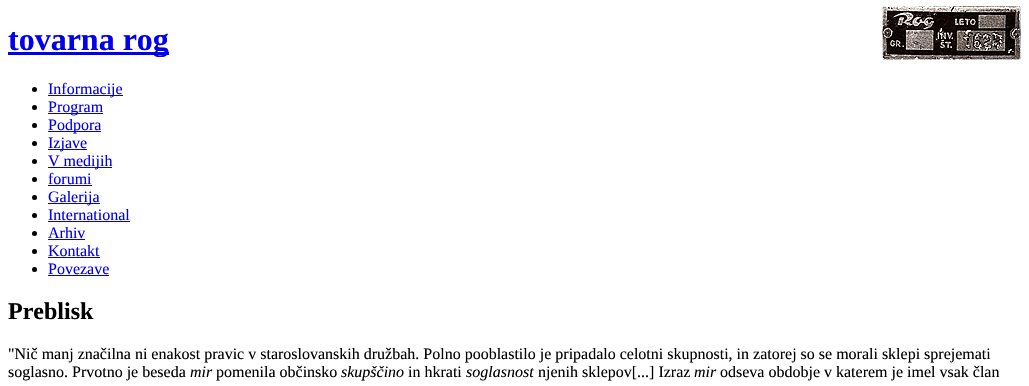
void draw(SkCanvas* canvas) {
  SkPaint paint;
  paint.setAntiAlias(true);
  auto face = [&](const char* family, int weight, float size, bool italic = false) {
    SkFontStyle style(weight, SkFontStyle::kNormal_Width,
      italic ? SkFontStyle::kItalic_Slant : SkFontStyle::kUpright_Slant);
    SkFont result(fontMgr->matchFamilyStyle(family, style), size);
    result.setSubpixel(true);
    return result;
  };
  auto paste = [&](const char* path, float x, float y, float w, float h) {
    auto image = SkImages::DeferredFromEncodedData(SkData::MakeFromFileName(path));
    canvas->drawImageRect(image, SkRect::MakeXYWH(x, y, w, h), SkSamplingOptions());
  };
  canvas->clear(0xffffffff);
  paint.setColor(0xff0000ee);
  canvas->drawRect(SkRect::MakeXYWH(8, 52, 161, 3), paint);
  paste("img/1.png", 882, 6, 139, 54);
  paint.setColor(0xff000000);
  canvas->drawCircle(34.5f, 89.5f, 2.5f, paint);
  paint.setColor(0xff0000ee);
  canvas->drawRect(SkRect::MakeXYWH(48, 95, 75, 1), paint);
  paint.setColor(0xff000000);
  canvas->drawCircle(34.5f, 107.5f, 2.5f, paint);
  paint.setColor(0xff0000ee);
  canvas->drawRect(SkRect::MakeXYWH(48, 113, 55, 1), paint);
  paint.setColor(0xff000000);
  canvas->drawCircle(34.5f, 125.5f, 2.5f, paint);
  paint.setColor(0xff0000ee);
  canvas->drawRect(SkRect::MakeXYWH(48, 131, 53, 1), paint);
  paint.setColor(0xff000000);
  canvas->drawCircle(34.5f, 143.5f, 2.5f, paint);
  paint.setColor(0xff0000ee);
  canvas->drawRect(SkRect::MakeXYWH(48, 149, 39, 1), paint);
  paint.setColor(0xff000000);
  canvas->drawCircle(34.5f, 161.5f, 2.5f, paint);
  paint.setColor(0xff0000ee);
  canvas->drawRect(SkRect::MakeXYWH(48, 167, 64, 1), paint);
  paint.setColor(0xff000000);
  canvas->drawCircle(34.5f, 179.5f, 2.5f, paint);
  paint.setColor(0xff0000ee);
  canvas->drawRect(SkRect::MakeXYWH(48, 185, 44, 1), paint);
  paint.setColor(0xff000000);
  canvas->drawCircle(34.5f, 197.5f, 2.5f, paint);
  paint.setColor(0xff0000ee);
  canvas->drawRect(SkRect::MakeXYWH(48, 203, 52, 1), paint);
  paint.setColor(0xff000000);
  canvas->drawCircle(34.5f, 215.5f, 2.5f, paint);
  paint.setColor(0xff0000ee);
  canvas->drawRect(SkRect::MakeXYWH(48, 221, 82, 1), paint);
  paint.setColor(0xff000000);
  canvas->drawCircle(34.5f, 233.5f, 2.5f, paint);
  paint.setColor(0xff0000ee);
  canvas->drawRect(SkRect::MakeXYWH(48, 239, 37, 1), paint);
  paint.setColor(0xff000000);
  canvas->drawCircle(34.5f, 251.5f, 2.5f, paint);
  paint.setColor(0xff0000ee);
  canvas->drawRect(SkRect::MakeXYWH(48, 257, 52, 1), paint);
  paint.setColor(0xff000000);
  canvas->drawCircle(34.5f, 269.5f, 2.5f, paint);
  paint.setColor(0xff0000ee);
  canvas->drawRect(SkRect::MakeXYWH(48, 275, 61, 1), paint);
  auto f0 = face("Liberation Serif", 700, 32);
  canvas->drawString("tovarna rog", 8, 50, f0, paint);
  auto f1 = face("Liberation Serif", 400, 16);
  {
    const struct { const char* s; float x, y; } items[] = {
      {"Informacije", 48, 94},
      {"Program", 48, 112},
      {"Podpora", 48, 130},
      {"Izjave", 48, 148},
      {"V medijih", 48, 166},
      {"forumi", 48, 184},
      {"Galerija", 48, 202},
      {"International", 48, 220},
      {"Arhiv", 48, 238},
      {"Kontakt", 48, 256},
      {"Povezave", 48, 274},
    };
    for (auto [s, x, y] : items) {
      canvas->drawString(s, x, y, f1, paint);
    }
  }
  auto f2 = face("Liberation Serif", 700, 24);
  paint.setColor(0xff000000);
  canvas->drawString("Preblisk", 8, 319, f2, paint);
  canvas->drawString("\"Nič manj značilna ni enakost pravic v staroslovanskih družbah. Polno pooblastilo je pripadalo celotni skupnosti, in zatorej so se morali sklepi sprejemati", 8, 359, f1, paint);
  canvas->drawString("soglasno. Prvotno je beseda", 8, 377, f1, paint);
  auto f3 = face("Liberation Serif", 400, 16, true);
  canvas->drawString("mir", 190, 377, f3, paint);
  canvas->drawString("pomenila občinsko", 216, 377, f1, paint);
  canvas->drawString("skupščino", 341, 377, f3, paint);
  canvas->drawString("in hkrati", 408, 377, f1, paint);
  canvas->drawString("soglasnost", 466, 377, f3, paint);
  canvas->drawString("njenih sklepov[...] Izraz", 538, 377, f1, paint);
  canvas->drawString("mir", 694, 377, f3, paint);
  canvas->drawString("odseva obdobje v katerem je imel vsak član", 720, 377, f1, paint);
}
